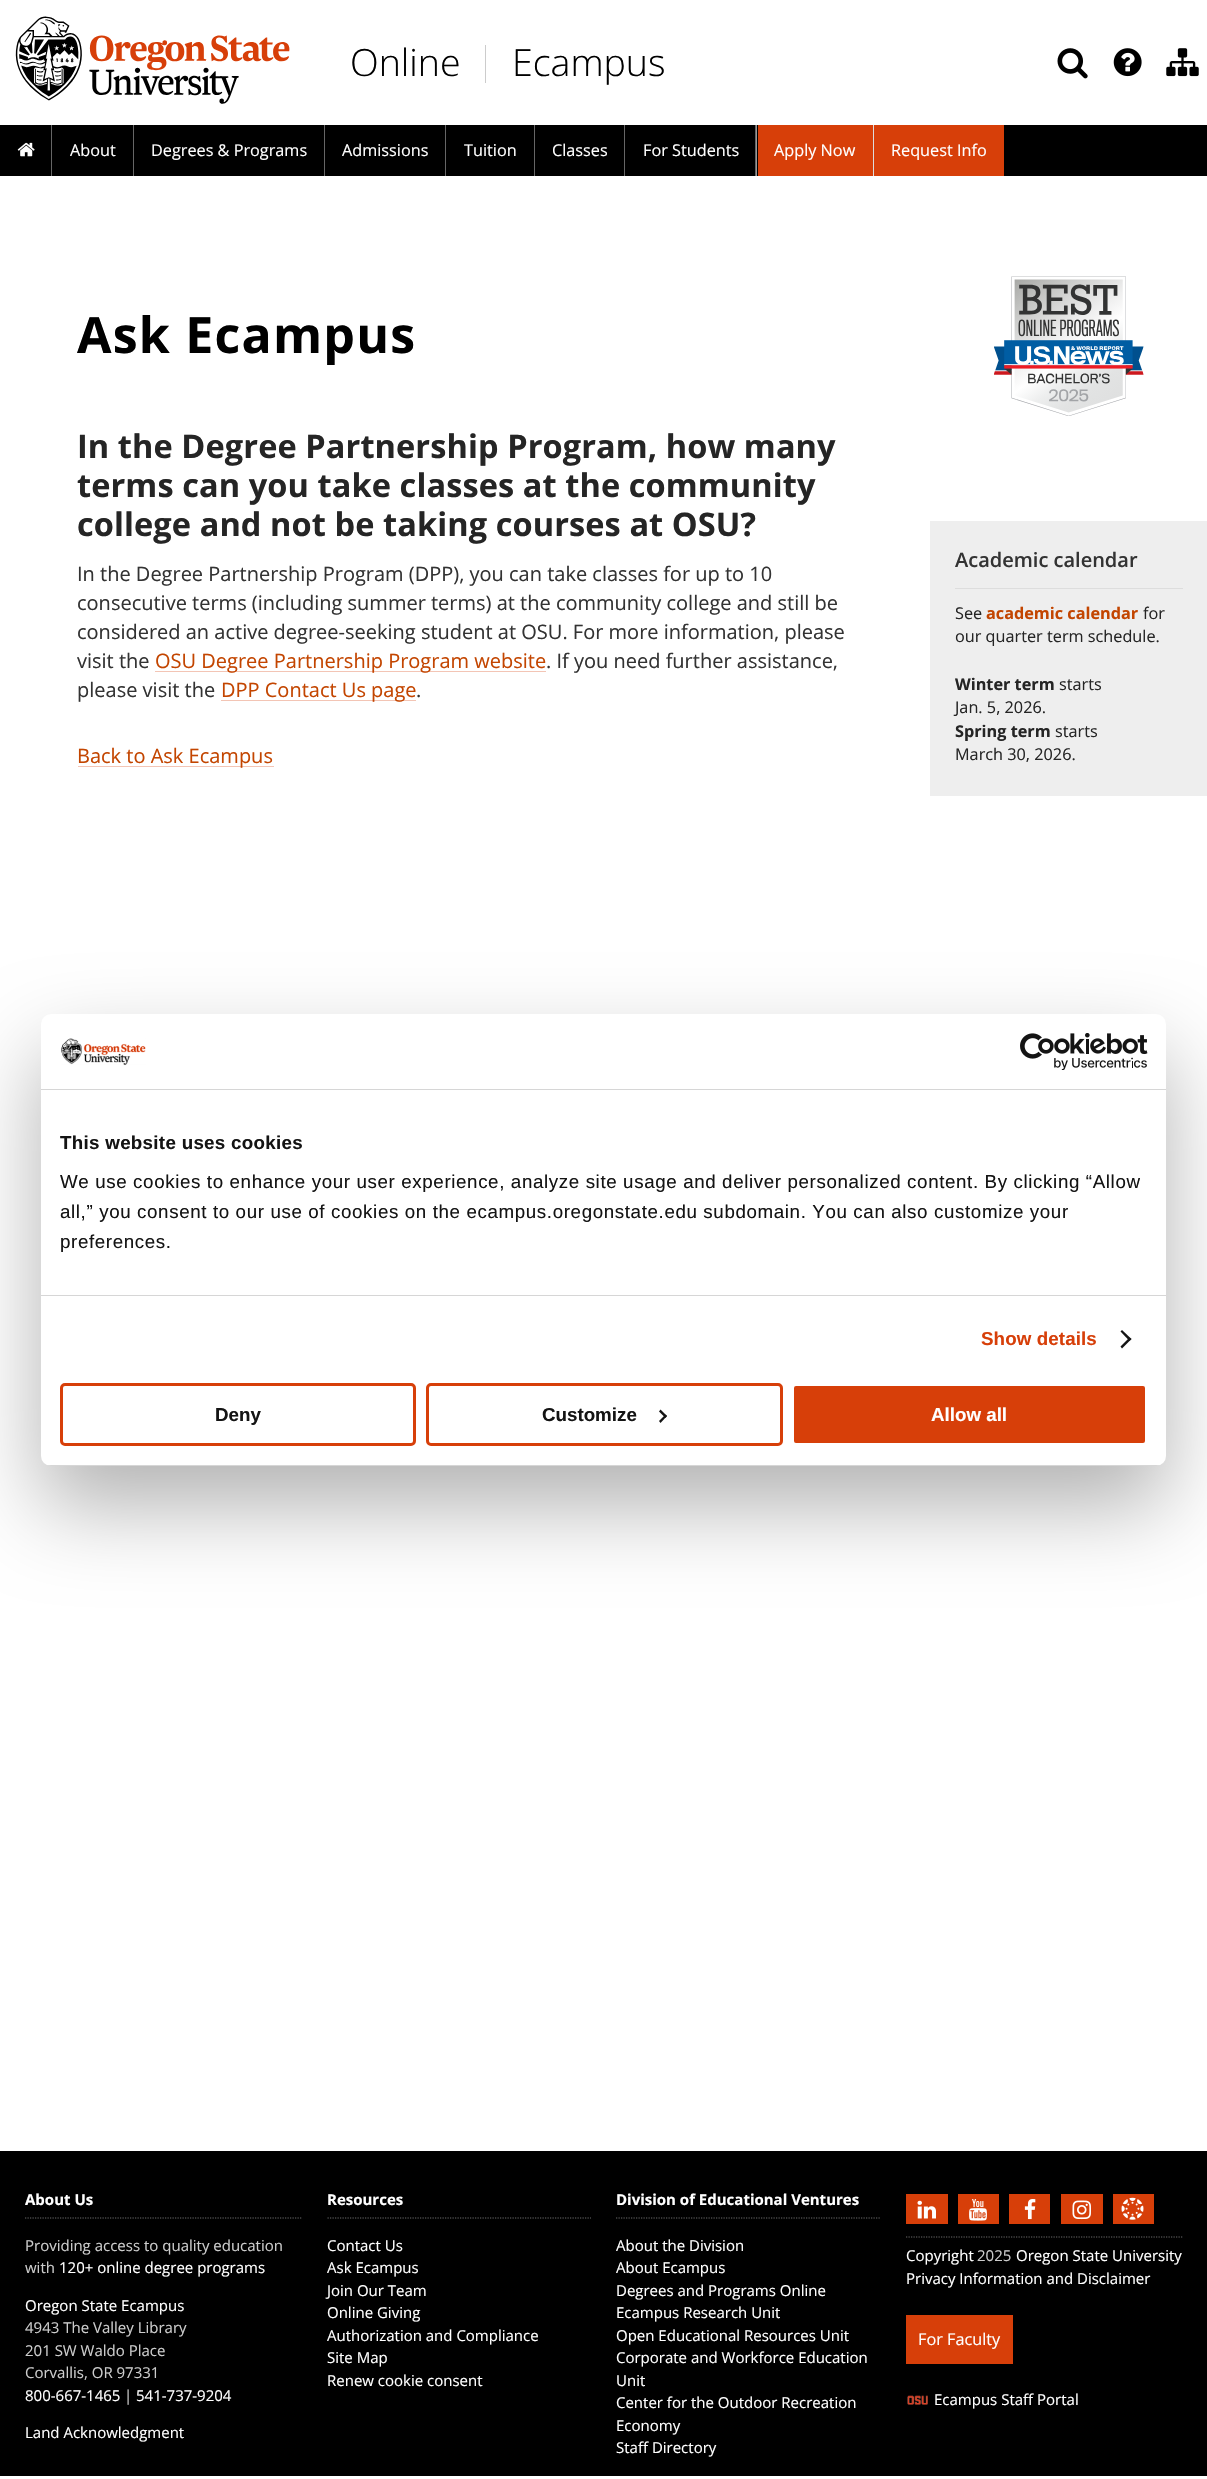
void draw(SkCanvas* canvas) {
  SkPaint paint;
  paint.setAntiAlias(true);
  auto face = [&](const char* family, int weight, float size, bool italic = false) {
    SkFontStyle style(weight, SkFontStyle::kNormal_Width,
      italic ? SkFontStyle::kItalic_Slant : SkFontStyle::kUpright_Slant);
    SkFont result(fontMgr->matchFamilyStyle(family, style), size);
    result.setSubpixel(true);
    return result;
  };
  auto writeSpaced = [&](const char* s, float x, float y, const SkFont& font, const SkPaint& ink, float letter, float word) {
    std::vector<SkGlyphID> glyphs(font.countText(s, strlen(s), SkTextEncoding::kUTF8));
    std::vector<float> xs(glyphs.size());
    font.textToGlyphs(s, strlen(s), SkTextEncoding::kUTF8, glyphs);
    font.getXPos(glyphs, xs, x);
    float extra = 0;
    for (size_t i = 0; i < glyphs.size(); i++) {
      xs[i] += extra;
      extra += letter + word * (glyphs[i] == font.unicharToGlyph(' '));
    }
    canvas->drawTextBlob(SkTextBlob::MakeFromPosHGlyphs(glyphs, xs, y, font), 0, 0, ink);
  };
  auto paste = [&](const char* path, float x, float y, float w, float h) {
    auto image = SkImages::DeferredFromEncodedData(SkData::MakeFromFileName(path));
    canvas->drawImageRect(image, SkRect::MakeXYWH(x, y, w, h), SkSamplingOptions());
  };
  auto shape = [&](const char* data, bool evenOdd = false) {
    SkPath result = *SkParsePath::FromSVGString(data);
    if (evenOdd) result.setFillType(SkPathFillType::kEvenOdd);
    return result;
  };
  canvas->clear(0xffffffff);
  paste("img/1.png", 15, 16, 275, 88);
  paint.setColor(0xffcccccc);
  canvas->drawRect(SkRect::MakeXYWH(485, 45, 1, 38), paint);
  paint.setColor(0xff000000);
  canvas->drawRect(SkRect::MakeXYWH(0, 125, 1207, 51), paint);
  paste("img/2.png", 17, 142, 18, 15);
  {
    const struct { float x, y, w, h; SkColor color; } items[] = {
      {51, 125, 1, 51, 0xff666666},
      {133, 125, 1, 51, 0xff666666},
      {324, 125, 1, 51, 0xff666666},
      {445, 125, 1, 51, 0xff666666},
      {534, 125, 1, 51, 0xff666666},
      {624, 125, 1, 51, 0xff666666},
      {755, 125, 1, 51, 0xff666666},
      {756, 125, 1, 51, 0xff999999},
      {758, 125, 115, 51, 0xffd73f09},
      {873, 125, 1, 51, 0xffdddddd},
      {874, 125, 130, 51, 0xffd73f09},
      {155, 671, 391, 1, 0xfff3c5b5},
      {221, 700, 195, 1, 0xfff3c5b5},
      {78, 766, 196, 1, 0xfff3c5b5},
    };
    for (auto [x, y, w, h, color] : items) {
      paint.setColor(color);
      canvas->drawRect(SkRect::MakeXYWH(x, y, w, h), paint);
    }
  }
  paste("img/3.png", 994, 276, 150, 140);
  {
    const struct { float x, y, w, h; SkColor color; } items[] = {
      {930, 521, 277, 275, 0xffeeeeee},
      {955, 588, 228, 1, 0xffdddddd},
      {0, 2151, 1207, 325, 0xff000000},
    };
    for (auto [x, y, w, h, color] : items) {
      paint.setColor(color);
      canvas->drawRect(SkRect::MakeXYWH(x, y, w, h), paint);
    }
  }
  paint.setStroke(true);
  paint.setStrokeWidth(1.2f);
  paint.setColor(0xff696969);
  paint.setPathEffect(SkDashPathEffect::Make({{1.25f, 1.25f}}, 0));
  canvas->drawPath(shape("M25 2218H302.5"), paint);
  paint.setPathEffect(nullptr);
  paint.setPathEffect(SkDashPathEffect::Make({{1.25f, 1.25f}}, 0));
  canvas->drawPath(shape("M327.5 2218H591"), paint);
  paint.setPathEffect(nullptr);
  paint.setPathEffect(SkDashPathEffect::Make({{1.25f, 1.25f}}, 0));
  canvas->drawPath(shape("M616 2218H881"), paint);
  paint.setPathEffect(nullptr);
  paint.setPathEffect(SkDashPathEffect::Make({{1.25f, 1.25f}}, 0));
  canvas->drawPath(shape("M906 2237H1182.5"), paint);
  paint.setPathEffect(nullptr);
  paint.setStroke(false);
  paint.setColor(0xffd73f09);
  canvas->drawRect(SkRect::MakeXYWH(906, 2194, 42, 30), paint);
  paste("img/4.png", 917, 2200, 19, 19);
  canvas->drawRect(SkRect::MakeXYWH(958, 2194, 41, 30), paint);
  paste("img/5.png", 969, 2199, 18, 22);
  canvas->drawRect(SkRect::MakeXYWH(1009, 2194, 41, 30), paint);
  paste("img/6.png", 1024, 2199, 12, 21);
  canvas->drawRect(SkRect::MakeXYWH(1061, 2194, 42, 30), paint);
  paste("img/7.png", 1072, 2200, 19, 20);
  canvas->drawRect(SkRect::MakeXYWH(1113, 2194, 41, 30), paint);
  paste("img/8.png", 1121, 2197, 23, 23);
  canvas->drawRect(SkRect::MakeXYWH(906, 2315, 107, 49), paint);
  paste("img/9.png", 907, 2395, 21, 10);
  paste("img/10.png", 1057, 48, 31, 31);
  paste("img/11.png", 1113, 48, 29, 29);
  paste("img/12.png", 1166, 48, 33, 29);
  paint.setColor(0x4d000000);
  paint.setMaskFilter(SkMaskFilter::MakeBlur(kNormal_SkBlurStyle, 42.5f));
  canvas->drawRoundRect(SkRect::MakeXYWH(41, 1054, 1125, 452), 10, 10, paint);
  paint.setMaskFilter(nullptr);
  paint.setColor(0xffffffff);
  canvas->drawRoundRect(SkRect::MakeXYWH(41, 1014, 1125, 452), 10, 10, paint);
  paint.setColor(0xffd6d6d6);
  canvas->drawRect(SkRect::MakeXYWH(41, 1089, 1125, 1), paint);
  paste("img/13.png", 61, 1038, 85, 28);
  paste("img/14.png", 1020, 1033, 128, 37);
  canvas->drawRect(SkRect::MakeXYWH(41, 1295, 1125, 1), paint);
  paint.setColor(0xff141414);
  canvas->drawPath(shape("M1122 1330L1131.5 1339L1129.5 1341L1120.5 1331.5Z"), paint);
  canvas->drawPath(shape("M1129.5 1337.5L1131.5 1339L1122 1348.5L1120.5 1346.5Z"), paint);
  canvas->save();
  canvas->clipPath(shape("M51 1014H1156C1161.5 1014 1166 1018.5 1166 1024V1456C1166 1461.5 1161.5 1466 1156 1466H51C45.5 1466 41 1461.5 41 1456V1024C41 1018.5 45.5 1014 51 1014Z"), true);
  paint.setColor(0xffd6d6d6);
  canvas->drawRect(SkRect::MakeXYWH(41, 1465, 1125, 1), paint);
  canvas->restore();
  paint.setStroke(true);
  paint.setStrokeWidth(3);
  paint.setColor(0xffd73f09);
  canvas->drawRoundRect(SkRect::MakeXYWH(61.5f, 1384.5f, 353, 60), 3.5f, 3.5f, paint);
  canvas->drawRoundRect(SkRect::MakeXYWH(427.5f, 1384.5f, 354, 60), 3.5f, 3.5f, paint);
  paint.setStroke(false);
  paint.setColor(0xff141414);
  canvas->drawPath(shape("M660.5 1409.5L667 1416L665.5 1418L659 1411.5Z"), paint);
  canvas->drawPath(shape("M665.5 1414.5L667 1416L660.5 1423L659 1421Z"), paint);
  paint.setColor(0xffd73f09);
  canvas->drawRoundRect(SkRect::MakeXYWH(792.5f, 1384.5f, 354, 60), 3.5f, 3.5f, paint);
  paint.setStroke(true);
  paint.setColor(0xffffffff);
  canvas->drawRoundRect(SkRect::MakeXYWH(792.5f, 1384.5f, 354, 60), 3.5f, 3.5f, paint);
  auto f0 = face("Open Sans", 300, 37.5f);
  paint.setStroke(false);
  paint.setColor(0xff000000);
  canvas->drawString("Online", 350, 76, f0, paint);
  canvas->drawString("Ecampus", 512, 76, f0, paint);
  auto f1 = face("Open Sans", 400, 16.25f);
  paint.setColor(0xffffffff);
  {
    const struct { const char* s; float x, y; } items[] = {
      {"About", 70, 156},
      {"Degrees & Programs", 151, 156},
      {"Admissions", 342, 156},
      {"Tuition", 464, 156},
      {"Classes", 552, 156},
      {"For Students", 643, 156},
      {"Apply Now", 774, 156},
      {"Request Info", 891, 156},
    };
    for (auto [s, x, y] : items) {
      canvas->drawString(s, x, y, f1, paint);
    }
  }
  auto f2 = face("Open Sans", 700, 50);
  paint.setColor(0xff000000);
  writeSpaced("Ask Ecampus", 77, 353, f2, paint, 1.25f, 0);
  auto f3 = face("Open Sans", 700, 32.5f);
  paint.setColor(0xff252525);
  {
    const struct { const char* s; float x, y; } items[] = {
      {"In the Degree Partnership Program, how many", 77, 458},
      {"terms can you take classes at the community", 77, 497},
      {"college and not be taking courses at OSU?", 77, 536},
    };
    for (auto [s, x, y] : items) {
      writeSpaced(s, x, y, f3, paint, 0.1f, 0);
    }
  }
  auto f4 = face("Open Sans", 400, 20);
  paint.setColor(0xff333333);
  {
    const struct { const char* s; float x, y; } items[] = {
      {"In the Degree Partnership Program (DPP), you can take classes for up to 10", 77, 581},
      {"consecutive terms (including summer terms) at the community college and still be", 77, 610},
      {"considered an active degree-seeking student at OSU. For more information, please", 77, 639},
      {"visit the", 77, 668},
    };
    for (auto [s, x, y] : items) {
      canvas->drawString(s, x, y, f4, paint);
    }
  }
  paint.setColor(0xffc34500);
  canvas->drawString("OSU Degree Partnership Program website", 155, 668, f4, paint);
  paint.setColor(0xff333333);
  canvas->drawString(". If you need further assistance,", 546, 668, f4, paint);
  canvas->drawString("please visit the", 77, 697, f4, paint);
  paint.setColor(0xffc34500);
  canvas->drawString("DPP Contact Us page", 221, 697, f4, paint);
  paint.setColor(0xff333333);
  canvas->drawString(".", 416, 697, f4, paint);
  paint.setColor(0xffc34500);
  canvas->drawString("Back to Ask Ecampus", 77, 763, f4, paint);
  auto f5 = face("Open Sans", 600, 20);
  paint.setColor(0xff333333);
  canvas->drawString("Academic calendar", 955, 567, f5, paint);
  paint.setColor(0xff252525);
  canvas->drawString("See", 955, 619, f1, paint);
  auto f6 = face("Open Sans", 700, 16.25f);
  paint.setColor(0xffc34500);
  canvas->drawString("academic calendar", 986, 619, f6, paint);
  paint.setColor(0xff252525);
  canvas->drawString("for", 1143, 619, f1, paint);
  canvas->drawString("our quarter term schedule.", 955, 642, f1, paint);
  canvas->drawString("Winter term", 955, 690, f6, paint);
  canvas->drawString("starts", 1059, 690, f1, paint);
  canvas->drawString("Jan. 5, 2026.", 955, 713, f1, paint);
  canvas->drawString("Spring term", 955, 737, f6, paint);
  canvas->drawString("starts", 1055, 737, f1, paint);
  canvas->drawString("March 30, 2026.", 955, 760, f1, paint);
  auto f7 = face("Open Sans", 700, 15);
  paint.setColor(0xffffffff);
  canvas->drawString("About Us", 25, 2205, f7, paint);
  auto f8 = face("Open Sans", 400, 15);
  paint.setColor(0xffcccccc);
  canvas->drawString("Providing access to quality education", 25, 2251, f8, paint);
  canvas->drawString("with", 25, 2273, f8, paint);
  paint.setColor(0xffffffff);
  canvas->drawString("120+ online degree programs", 59, 2273, f8, paint);
  canvas->drawString("Oregon State Ecampus", 25, 2311, f8, paint);
  paint.setColor(0xffcccccc);
  {
    const struct { const char* s; float x, y; } items[] = {
      {"4943 The Valley Library", 25, 2333},
      {"201 SW Waldo Place", 25, 2356},
      {"Corvallis, OR 97331", 25, 2378},
    };
    for (auto [s, x, y] : items) {
      canvas->drawString(s, x, y, f8, paint);
    }
  }
  paint.setColor(0xffffffff);
  canvas->drawString("800-667-1465", 25, 2401, f8, paint);
  paint.setColor(0xffcccccc);
  canvas->drawString("|", 124, 2401, f8, paint);
  paint.setColor(0xffffffff);
  canvas->drawString("541-737-9204", 136, 2401, f8, paint);
  canvas->drawString("Land Acknowledgment", 25, 2438, f8, paint);
  canvas->drawString("Resources", 327, 2205, f7, paint);
  {
    const struct { const char* s; float x, y; } items[] = {
      {"Contact Us", 327, 2251},
      {"Ask Ecampus", 327, 2273},
      {"Join Our Team", 327, 2296},
      {"Online Giving", 327, 2318},
      {"Authorization and Compliance", 327, 2341},
      {"Site Map", 327, 2363},
      {"Renew cookie consent", 327, 2386},
    };
    for (auto [s, x, y] : items) {
      canvas->drawString(s, x, y, f8, paint);
    }
  }
  canvas->drawString("Division of Educational Ventures", 616, 2205, f7, paint);
  {
    const struct { const char* s; float x, y; } items[] = {
      {"About the Division", 616, 2251},
      {"About Ecampus", 616, 2273},
      {"Degrees and Programs Online", 616, 2296},
      {"Ecampus Research Unit", 616, 2318},
      {"Open Educational Resources Unit", 616, 2341},
      {"Corporate and Workforce Education", 616, 2363},
      {"Unit", 616, 2386},
      {"Center for the Outdoor Recreation", 616, 2408},
      {"Economy", 616, 2431},
      {"Staff Directory", 616, 2453},
      {"Copyright", 906, 2261},
    };
    for (auto [s, x, y] : items) {
      canvas->drawString(s, x, y, f8, paint);
    }
  }
  paint.setColor(0xffcccccc);
  canvas->drawString("2025", 977, 2261, f8, paint);
  paint.setColor(0xffffffff);
  canvas->drawString("Oregon State University", 1016, 2261, f8, paint);
  canvas->drawString("Privacy Information and Disclaimer", 906, 2284, f8, paint);
  canvas->drawString("For Faculty", 918, 2345, f1, paint);
  canvas->drawString("Ecampus Staff Portal", 934, 2405, f8, paint);
  auto f9 = face("Liberation Sans", 700, 18.75f);
  paint.setColor(0xff141414);
  writeSpaced("This website uses cookies", 60, 1149, f9, paint, 0.3f, 0);
  auto f10 = face("Liberation Sans", 400, 18.75f);
  {
    const struct { const char* s; float x, y; } items[] = {
      {"We use cookies to enhance your user experience, analyze site usage and deliver personalized content. By clicking “Allow", 60, 1188},
      {"all,” you consent to our use of cookies on the ecampus.oregonstate.edu subdomain. You can also customize your", 60, 1218},
      {"preferences.", 60, 1248},
    };
    for (auto [s, x, y] : items) {
      writeSpaced(s, x, y, f10, paint, 0.62f, 0);
    }
  }
  paint.setColor(0xffd73f09);
  writeSpaced("Show details", 981, 1345, f9, paint, 0.1f, 0);
  paint.setColor(0xff141414);
  canvas->drawString("Deny", 215, 1421, f9, paint);
  canvas->drawString("Customize", 542, 1421, f9, paint);
  paint.setColor(0xffffffff);
  canvas->drawString("Allow all", 931, 1421, f9, paint);
}
